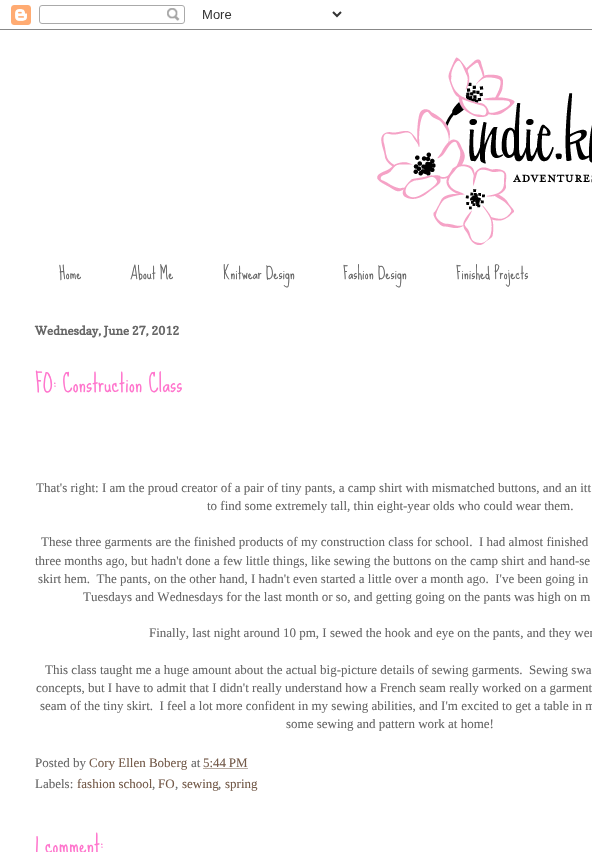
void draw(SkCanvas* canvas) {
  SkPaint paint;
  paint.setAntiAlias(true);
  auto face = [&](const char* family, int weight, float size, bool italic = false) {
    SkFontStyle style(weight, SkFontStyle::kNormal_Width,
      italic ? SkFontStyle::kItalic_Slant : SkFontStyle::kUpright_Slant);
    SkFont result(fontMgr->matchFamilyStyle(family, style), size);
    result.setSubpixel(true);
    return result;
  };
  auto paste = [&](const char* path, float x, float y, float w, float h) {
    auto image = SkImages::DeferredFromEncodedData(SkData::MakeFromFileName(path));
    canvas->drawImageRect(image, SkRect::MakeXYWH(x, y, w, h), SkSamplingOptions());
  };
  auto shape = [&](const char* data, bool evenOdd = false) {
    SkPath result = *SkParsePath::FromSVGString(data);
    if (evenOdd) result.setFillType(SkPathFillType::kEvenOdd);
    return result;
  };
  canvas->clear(0xffffffff);
  paste("img/1.png", 0, 5, 592, 25);
  paste("img/2.png", 377, 57, 215, 188);
  paint.setStroke(true);
  paint.setStrokeWidth(1);
  paint.setColor(0xff735a49);
  paint.setPathEffect(SkDashPathEffect::Make({{1, 1}}, 0));
  canvas->drawPath(shape("M203.5 768.5H248"), paint);
  paint.setPathEffect(nullptr);
  auto f0 = face("Sue Ellen Francisco", 400, 16);
  paint.setStroke(false);
  paint.setColor(0xff666666);
  {
    const struct { const char* s; float x, y; } items[] = {
      {"Home", 59, 279},
      {"About Me", 130, 279},
      {"Knitwear Design", 223, 279},
      {"Fashion Design", 343, 279},
      {"Finished Projects", 456, 279},
    };
    for (auto [s, x, y] : items) {
      canvas->drawString(s, x, y, f0, paint);
    }
  }
  auto f1 = face("Copse", 700, 12);
  canvas->drawString("Wednesday, June 27, 2012", 35, 335, f1, paint);
  auto f2 = face("Sue Ellen Francisco", 400, 24);
  paint.setColor(0xffff75cd);
  canvas->drawString("FO: Construction Class", 35, 392, f2, paint);
  auto f3 = face("Liberation Serif", 400, 13);
  paint.setColor(0xff666666);
  {
    const struct { const char* s; float x, y; } items[] = {
      {"That's right: I am the proud creator of a pair of tiny pants, a camp shirt with mismatched buttons, and an itt", 36, 492},
      {"to find some extremely tall, thin eight-year olds who could wear them.", 207, 510},
      {"These three garments are the finished products of my construction class for school.  I had almost finished", 41, 546},
      {"three months ago, but hadn't done a few little things, like sewing the buttons on the camp shirt and hand-se", 35, 565},
      {"skirt hem.  The pants, on the other hand, I hadn't even started a little over a month ago.  I've been going in", 38, 583},
      {"Tuesdays and Wednesdays for the last month or so, and getting going on the pants was high on m", 83, 601},
      {"Finally, last night around 10 pm, I sewed the hook and eye on the pants, and they wer", 149, 637},
      {"This class taught me a huge amount about the actual big-picture details of sewing garments.  Sewing swa", 45, 674},
      {"concepts, but I have to admit that I didn't really understand how a French seam really worked on a garment", 36, 692},
      {"seam of the tiny skirt.  I feel a lot more confident in my sewing abilities, and I'm excited to get a table in m", 40, 710},
      {"some sewing and pattern work at home!", 286, 728},
      {"Posted by", 35, 767},
    };
    for (auto [s, x, y] : items) {
      canvas->drawString(s, x, y, f3, paint);
    }
  }
  paint.setColor(0xff735a49);
  canvas->drawString("Cory Ellen Boberg", 89, 767, f3, paint);
  paint.setColor(0xff666666);
  canvas->drawString("at", 191, 767, f3, paint);
  paint.setColor(0xff735a49);
  canvas->drawString("5:44 PM", 203, 767, f3, paint);
  paint.setColor(0xff666666);
  canvas->drawString("Labels:", 35, 788, f3, paint);
  paint.setColor(0xff735a49);
  canvas->drawString("fashion school", 77, 788, f3, paint);
  paint.setColor(0xff666666);
  canvas->drawString(",", 152, 788, f3, paint);
  paint.setColor(0xff735a49);
  canvas->drawString("FO", 158, 788, f3, paint);
  paint.setColor(0xff666666);
  canvas->drawString(",", 175, 788, f3, paint);
  paint.setColor(0xff735a49);
  canvas->drawString("sewing", 182, 788, f3, paint);
  paint.setColor(0xff666666);
  canvas->drawString(",", 218, 788, f3, paint);
  paint.setColor(0xff735a49);
  canvas->drawString("spring", 225, 788, f3, paint);
  paint.setColor(0xffff75cd);
  canvas->drawString("1 comment:", 35, 853, f2, paint);
}
